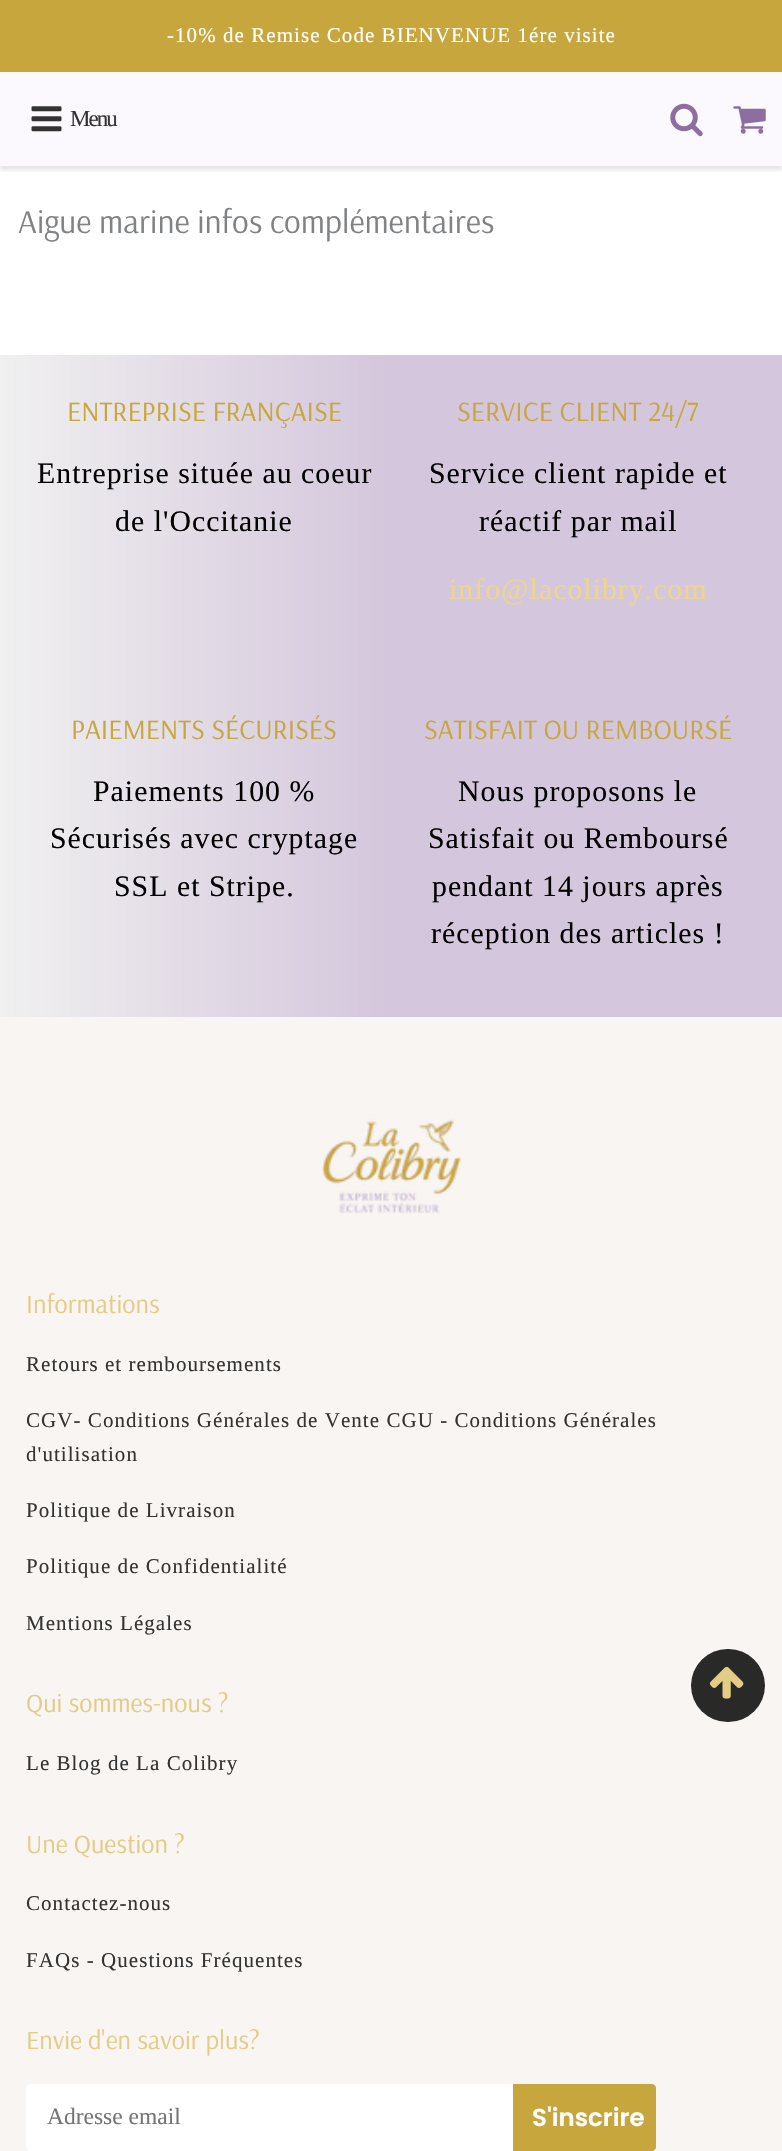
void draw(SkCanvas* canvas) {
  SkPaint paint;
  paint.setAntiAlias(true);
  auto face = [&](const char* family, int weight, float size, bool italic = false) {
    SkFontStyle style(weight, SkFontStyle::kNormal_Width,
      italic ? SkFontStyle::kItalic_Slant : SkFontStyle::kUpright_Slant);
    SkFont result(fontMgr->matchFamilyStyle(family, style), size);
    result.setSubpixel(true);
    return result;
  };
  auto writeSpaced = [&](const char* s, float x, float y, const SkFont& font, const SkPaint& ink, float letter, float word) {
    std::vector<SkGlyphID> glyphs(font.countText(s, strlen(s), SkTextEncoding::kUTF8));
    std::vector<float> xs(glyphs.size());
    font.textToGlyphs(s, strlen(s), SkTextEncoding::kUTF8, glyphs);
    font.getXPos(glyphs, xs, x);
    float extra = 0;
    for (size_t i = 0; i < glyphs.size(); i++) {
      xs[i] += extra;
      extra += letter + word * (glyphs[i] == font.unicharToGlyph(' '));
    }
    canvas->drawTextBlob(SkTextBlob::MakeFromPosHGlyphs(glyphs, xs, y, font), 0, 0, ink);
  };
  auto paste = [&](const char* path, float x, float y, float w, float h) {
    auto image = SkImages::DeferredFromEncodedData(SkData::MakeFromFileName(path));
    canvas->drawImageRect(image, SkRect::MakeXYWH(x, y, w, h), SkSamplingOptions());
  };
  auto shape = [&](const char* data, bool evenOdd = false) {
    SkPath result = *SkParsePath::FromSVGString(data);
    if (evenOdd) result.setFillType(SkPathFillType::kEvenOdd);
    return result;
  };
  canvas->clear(0xffffffff);
  paint.setColor(0xfffcf9fe);
  canvas->drawRect(SkRect::MakeXYWH(0, 72, 782, 94), paint);
  canvas->save();
  canvas->clipRect(SkRect::MakeXYWH(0, 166, 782, 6));
  paint.setColor(0x1a000000);
  paint.setMaskFilter(SkMaskFilter::MakeBlur(kNormal_SkBlurStyle, 2));
  canvas->drawRect(SkRect::MakeXYWH(0, 75, 782, 95), paint);
  paint.setMaskFilter(nullptr);
  canvas->restore();
  paint.setColor(0xffc7a73d);
  canvas->drawRect(SkRect::MakeXYWH(0, 0, 782, 72), paint);
  paste("img/1.png", 31, 106, 31, 26);
  paste("img/2.png", 670, 103, 33, 34);
  paste("img/3.png", 733, 106, 33, 28);
  {
    const SkColor colors[] = {0xfff0f0f0, 0xffd4c6dc, 0xffd4c6dc};
    const float stops[] = {0, 0.5f, 1};
    const SkPoint ends[] = {{0, 686}, {782, 686}};
    paint.setShader(SkGradientShader::MakeLinear(ends, colors, stops, 3, SkTileMode::kClamp));
    paint.setAlpha(255);
  }
  canvas->drawRect(SkRect::MakeXYWH(0, 355, 782, 662), paint);
  {
    const SkColor colors[] = {0xffd7829a, 0xfff9f5f2, 0xfff9f5f2};
    const float stops[] = {0, 0.09f, 1};
    const SkPoint ends[] = {{391, 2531}, {391, 1017}};
    paint.setShader(SkGradientShader::MakeLinear(ends, colors, stops, 3, SkTileMode::kClamp));
    paint.setAlpha(255);
  }
  canvas->drawRect(SkRect::MakeXYWH(0, 1017, 782, 1134), paint);
  paste("img/4.png", 321, 1119, 140, 95);
  paint.setShader(nullptr);
  paint.setColor(0xffffffff);
  canvas->drawPath(shape("M30 2084H513V2151H30C28 2151 26 2149 26 2147V2088C26 2086 28 2084 30 2084Z"), paint);
  paint.setColor(0xffc7a73d);
  canvas->drawPath(shape("M513 2084H652C654 2084 656 2086 656 2088V2147C656 2149 654 2151 652 2151H513Z"), paint);
  paint.setColor(0xff292928);
  canvas->drawRoundRect(SkRect::MakeXYWH(691, 1649, 74, 73), 36.5f, 36.5f, paint);
  paste("img/5.png", 709, 1666, 35, 33);
  auto f0 = face("Liberation Serif", 400, 21);
  paint.setColor(0xffffffff);
  writeSpaced("-10% de Remise Code BIENVENUE 1ére visite", 167, 42, f0, paint, 1.05f, 0);
  auto f1 = face("Liberation Serif", 400, 23);
  paint.setColor(0xff333333);
  writeSpaced("Menu", 70, 126, f1, paint, -2, 0);
  auto f2 = face("Arsenal", 400, 33.25f);
  paint.setColor(0xff808284);
  canvas->drawString("Aigue marine infos complémentaires", 18, 233, f2, paint);
  auto f3 = face("Arsenal", 400, 28);
  paint.setColor(0xffc7a73d);
  canvas->drawString("ENTREPRISE FRANÇAISE", 67, 421, f3, paint);
  auto f4 = face("Liberation Serif", 400, 29.75f);
  paint.setColor(0xff000000);
  writeSpaced("Entreprise située au coeur", 37, 483, f4, paint, 1.05f, 0);
  writeSpaced("de l'Occitanie", 115, 531, f4, paint, 1.05f, 0);
  paint.setColor(0xffc7a73d);
  canvas->drawString("SERVICE CLIENT 24/7", 457, 421, f3, paint);
  paint.setColor(0xff000000);
  writeSpaced("Service client rapide et", 429, 483, f4, paint, 1.05f, 0);
  writeSpaced("réactif par mail", 479, 531, f4, paint, 1.05f, 0);
  paint.setColor(0xffedd68c);
  writeSpaced("info@lacolibry.com", 449, 599, f4, paint, 1.05f, 0);
  paint.setColor(0xffc7a73d);
  canvas->drawString("PAIEMENTS SÉCURISÉS", 71, 739, f3, paint);
  paint.setColor(0xff000000);
  {
    const struct { const char* s; float x, y; } items[] = {
      {"Paiements 100 %", 93, 801},
      {"Sécurisés avec cryptage", 50, 848},
      {"SSL et Stripe.", 114, 896},
    };
    for (auto [s, x, y] : items) {
      writeSpaced(s, x, y, f4, paint, 1.05f, 0);
    }
  }
  paint.setColor(0xffc7a73d);
  canvas->drawString("SATISFAIT OU REMBOURSÉ", 424, 739, f3, paint);
  paint.setColor(0xff000000);
  {
    const struct { const char* s; float x, y; } items[] = {
      {"Nous proposons le", 458, 801},
      {"Satisfait ou Remboursé", 428, 848},
      {"pendant 14 jours après", 432, 896},
      {"réception des articles !", 431, 943},
    };
    for (auto [s, x, y] : items) {
      writeSpaced(s, x, y, f4, paint, 1.05f, 0);
    }
  }
  auto f5 = face("Arsenal", 400, 26.25f);
  paint.setColor(0xffe2cc86);
  canvas->drawString("Informations", 26, 1313, f5, paint);
  paint.setColor(0xff333333);
  {
    const struct { const char* s; float x, y; } items[] = {
      {"Retours et remboursements", 26, 1371},
      {"CGV- Conditions Générales de Vente CGU - Conditions Générales", 26, 1427},
      {"d'utilisation", 26, 1461},
      {"Politique de Livraison", 26, 1517},
      {"Politique de Confidentialité", 26, 1573},
      {"Mentions Légales", 26, 1630},
    };
    for (auto [s, x, y] : items) {
      writeSpaced(s, x, y, f0, paint, 1.05f, 0);
    }
  }
  paint.setColor(0xffe2cc86);
  canvas->drawString("Qui sommes-nous ?", 26, 1712, f5, paint);
  paint.setColor(0xff333333);
  writeSpaced("Le Blog de La Colibry", 26, 1770, f0, paint, 1.05f, 0);
  paint.setColor(0xffe2cc86);
  canvas->drawString("Une Question ?", 26, 1853, f5, paint);
  paint.setColor(0xff333333);
  writeSpaced("Contactez-nous", 26, 1910, f0, paint, 1.05f, 0);
  writeSpaced("FAQs - Questions Fréquentes", 26, 1967, f0, paint, 1.05f, 0);
  paint.setColor(0xffe2cc86);
  canvas->drawString("Envie d'en savoir plus?", 26, 2049, f5, paint);
  auto f6 = face("Liberation Serif", 400, 23.5f);
  paint.setColor(0xff757575);
  canvas->drawString("Adresse email", 47, 2124, f6, paint);
  auto f7 = face("Poppins", 600, 24.5f);
  paint.setColor(0xffffffff);
  canvas->drawString("S'inscrire", 532, 2126, f7, paint);
}
